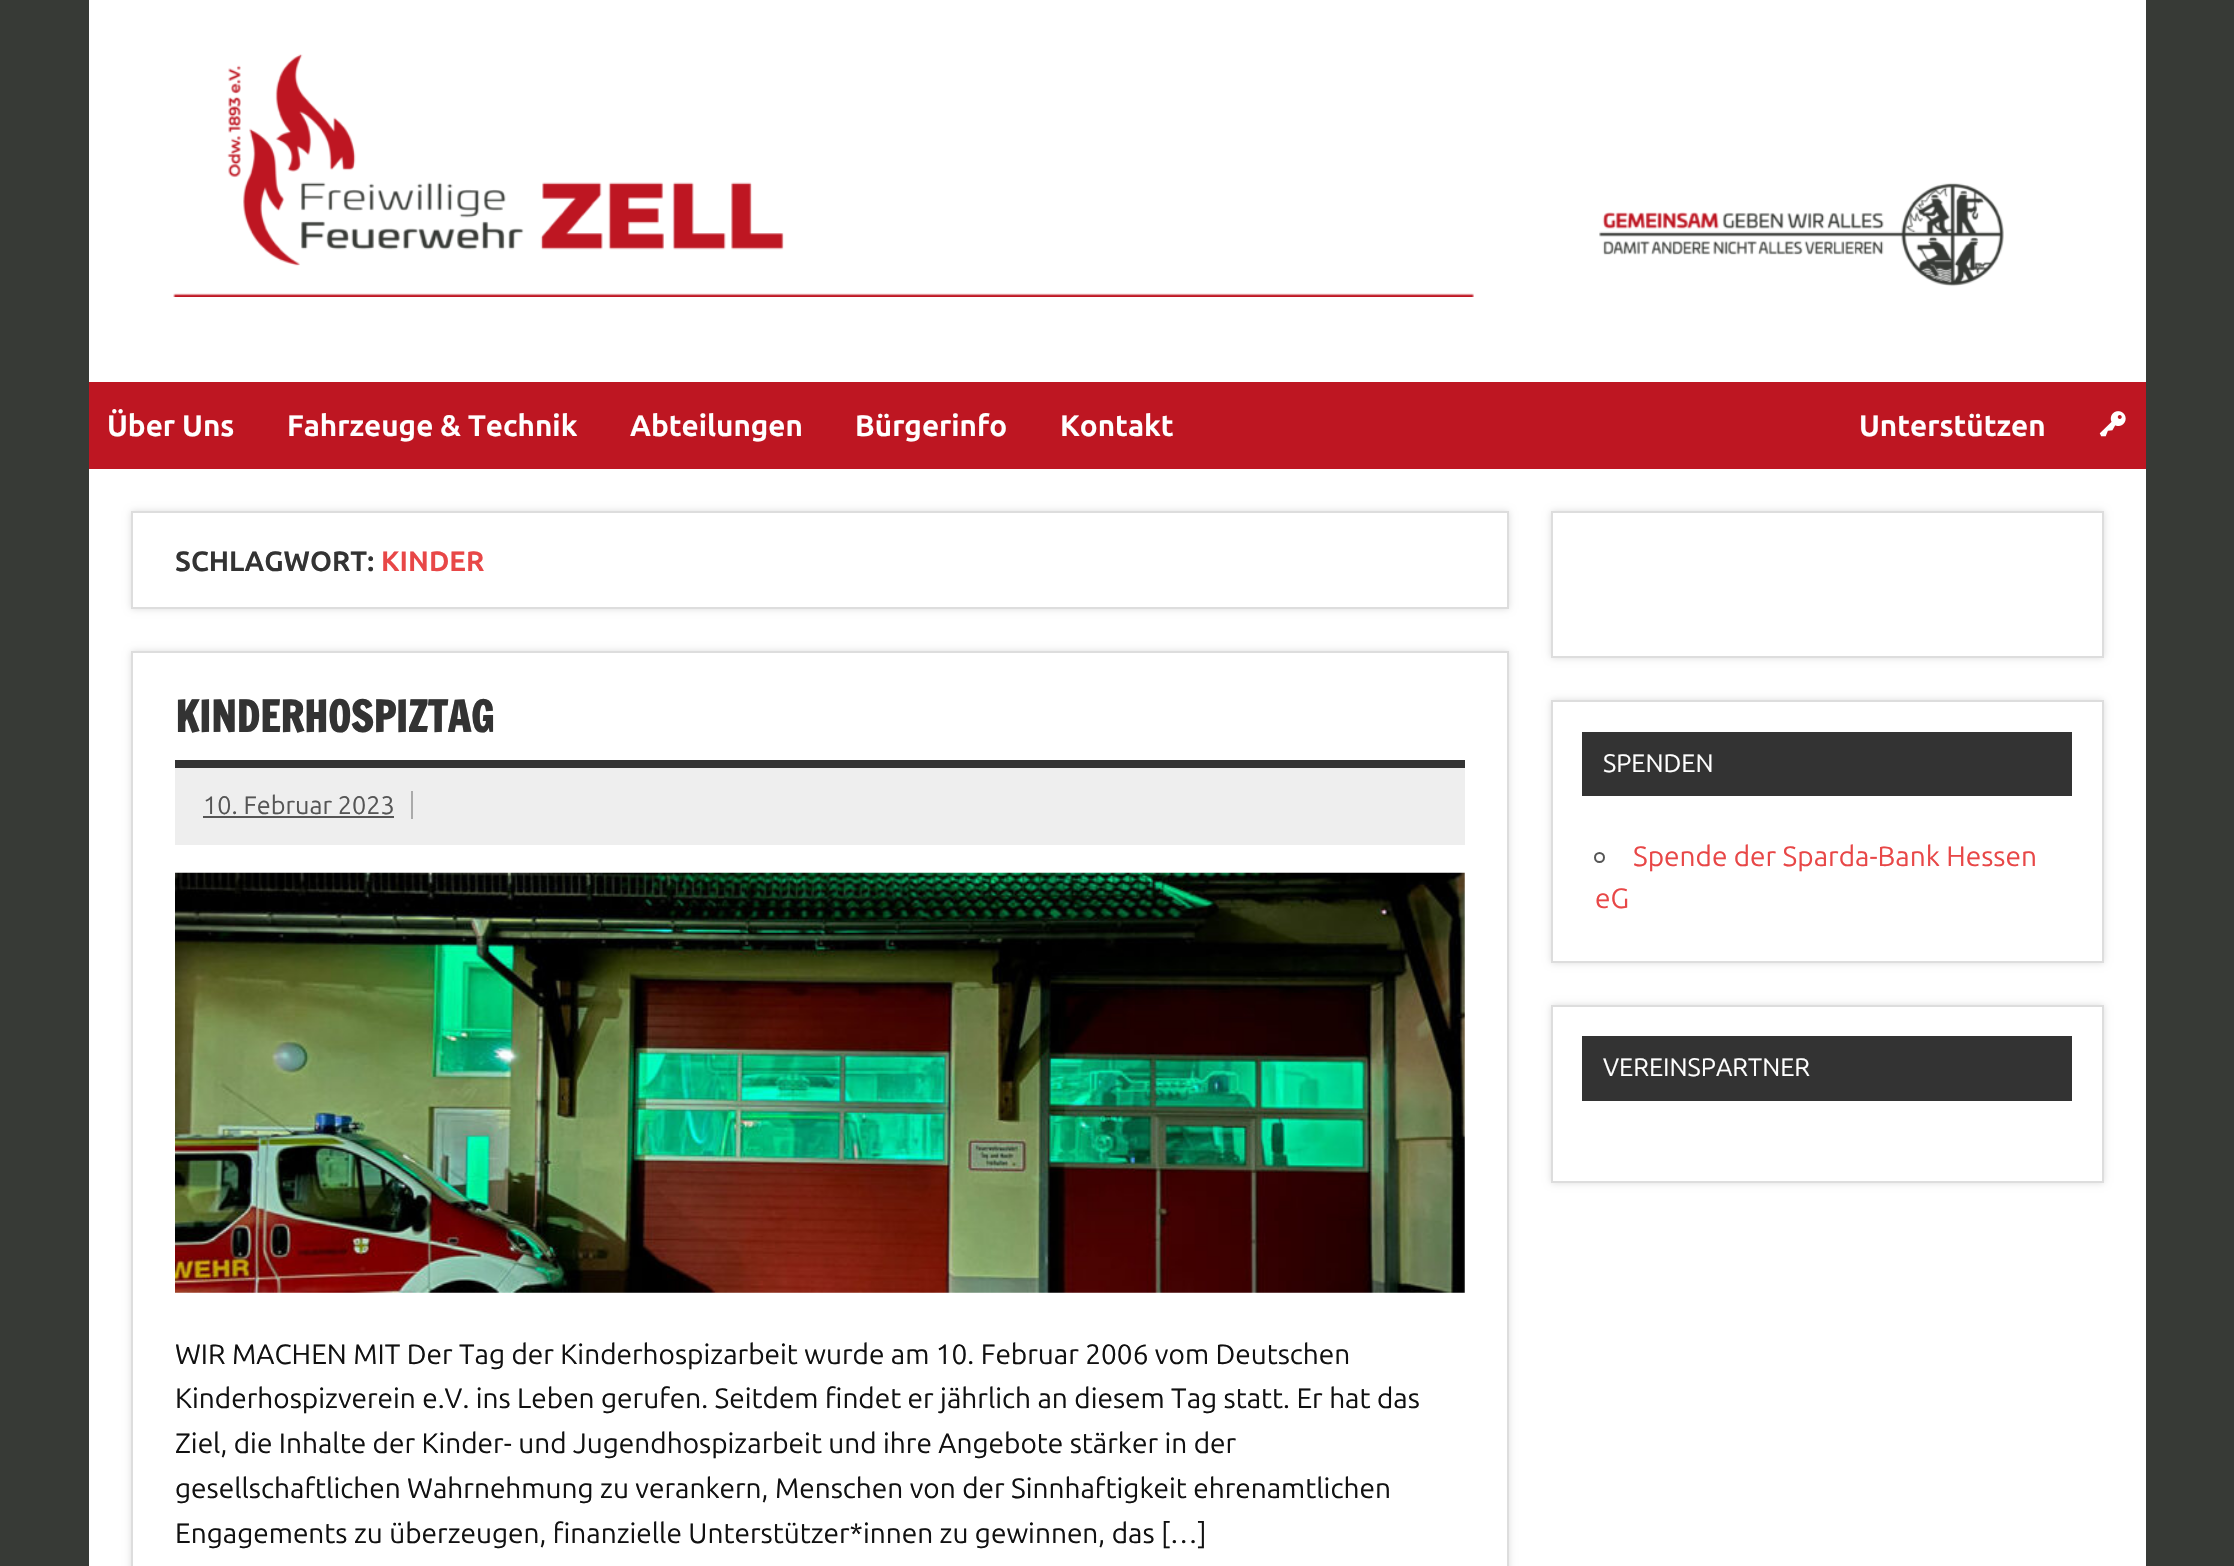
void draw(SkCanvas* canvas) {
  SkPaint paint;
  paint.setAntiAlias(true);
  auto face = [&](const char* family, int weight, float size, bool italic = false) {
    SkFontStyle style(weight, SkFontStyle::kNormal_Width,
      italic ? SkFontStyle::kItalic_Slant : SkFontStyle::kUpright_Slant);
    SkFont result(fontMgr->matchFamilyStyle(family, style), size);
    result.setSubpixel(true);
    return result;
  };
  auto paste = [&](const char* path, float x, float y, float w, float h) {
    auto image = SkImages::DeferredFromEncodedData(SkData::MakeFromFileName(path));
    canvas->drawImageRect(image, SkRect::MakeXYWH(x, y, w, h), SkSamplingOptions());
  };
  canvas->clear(0xff373a36);
  paint.setColor(0xffffffff);
  canvas->drawRect(SkRect::MakeXYWH(89, 0, 2057, 1566), paint);
  paste("img/1.png", 173, 54, 1831, 243);
  paint.setColor(0xffbe1622);
  canvas->drawRect(SkRect::MakeXYWH(89, 382, 2057, 87), paint);
  paste("img/2.png", 2099, 411, 27, 26);
  paint.setColor(0xffdddddd);
  paint.setMaskFilter(SkMaskFilter::MakeBlur(kNormal_SkBlurStyle, 3.5f));
  canvas->drawRect(SkRect::MakeXYWH(131, 511, 1378, 98), paint);
  paint.setMaskFilter(nullptr);
  paint.setColor(0xffffffff);
  canvas->drawRect(SkRect::MakeXYWH(132, 512, 1376, 96), paint);
  paint.setStroke(true);
  paint.setStrokeWidth(2);
  paint.setColor(0xffdddddd);
  canvas->drawRect(SkRect::MakeXYWH(132, 512, 1376, 96), paint);
  paint.setStroke(false);
  paint.setMaskFilter(SkMaskFilter::MakeBlur(kNormal_SkBlurStyle, 3.5f));
  canvas->drawRect(SkRect::MakeXYWH(131, 651, 1378, 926), paint);
  paint.setMaskFilter(nullptr);
  paint.setColor(0xffffffff);
  canvas->drawRect(SkRect::MakeXYWH(132, 652, 1376, 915), paint);
  paint.setStroke(true);
  paint.setColor(0xffdddddd);
  canvas->drawRect(SkRect::MakeXYWH(132, 652, 1376, 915), paint);
  paint.setStroke(false);
  {
    const struct { float x, y, w, h; SkColor color; } items[] = {
      {175, 760, 1290, 8, 0xff333333},
      {175, 768, 1290, 77, 0xffeeeeee},
      {411, 791, 2, 28, 0xffaaaaaa},
      {203, 816, 191, 2, 0xff555555},
    };
    for (auto [x, y, w, h, color] : items) {
      paint.setColor(color);
      canvas->drawRect(SkRect::MakeXYWH(x, y, w, h), paint);
    }
  }
  paste("img/3.png", 175, 872, 1290, 421);
  paint.setColor(0xffdddddd);
  paint.setMaskFilter(SkMaskFilter::MakeBlur(kNormal_SkBlurStyle, 3.5f));
  canvas->drawRect(SkRect::MakeXYWH(1551, 511, 553, 147), paint);
  paint.setMaskFilter(nullptr);
  paint.setColor(0xffffffff);
  canvas->drawRect(SkRect::MakeXYWH(1552, 512, 551, 145), paint);
  paint.setStroke(true);
  paint.setColor(0xffdddddd);
  canvas->drawRect(SkRect::MakeXYWH(1552, 512, 551, 145), paint);
  paint.setStroke(false);
  paint.setMaskFilter(SkMaskFilter::MakeBlur(kNormal_SkBlurStyle, 3.5f));
  canvas->drawRect(SkRect::MakeXYWH(1551, 700, 553, 263), paint);
  paint.setMaskFilter(nullptr);
  paint.setColor(0xffffffff);
  canvas->drawRect(SkRect::MakeXYWH(1552, 701, 551, 261), paint);
  paint.setStroke(true);
  paint.setColor(0xffdddddd);
  canvas->drawRect(SkRect::MakeXYWH(1552, 701, 551, 261), paint);
  paint.setStroke(false);
  paint.setColor(0xff333333);
  canvas->drawRect(SkRect::MakeXYWH(1582, 732, 490, 64), paint);
  paint.setStroke(true);
  paint.setColor(0xff555555);
  canvas->drawCircle(1599.5f, 857.5f, 4.5f, paint);
  paint.setStroke(false);
  paint.setColor(0xffdddddd);
  paint.setMaskFilter(SkMaskFilter::MakeBlur(kNormal_SkBlurStyle, 3.5f));
  canvas->drawRect(SkRect::MakeXYWH(1551, 1005, 553, 178), paint);
  paint.setMaskFilter(nullptr);
  paint.setColor(0xffffffff);
  canvas->drawRect(SkRect::MakeXYWH(1552, 1006, 551, 176), paint);
  paint.setStroke(true);
  paint.setColor(0xffdddddd);
  canvas->drawRect(SkRect::MakeXYWH(1552, 1006, 551, 176), paint);
  paint.setStroke(false);
  paint.setColor(0xff333333);
  canvas->drawRect(SkRect::MakeXYWH(1582, 1036, 490, 65), paint);
  auto f0 = face("Ubuntu", 700, 29.75f);
  paint.setColor(0xffffffff);
  {
    const struct { const char* s; float x, y; } items[] = {
      {"Über Uns", 107, 436},
      {"Fahrzeuge & Technik", 287, 436},
      {"Abteilungen", 630, 436},
      {"Bürgerinfo", 855, 436},
      {"Kontakt", 1060, 436},
      {"Unterstützen", 1859, 436},
    };
    for (auto [s, x, y] : items) {
      canvas->drawString(s, x, y, f0, paint);
    }
  }
  auto f1 = face("Ubuntu", 700, 28);
  paint.setColor(0xff333333);
  canvas->drawString("SCHLAGWORT:", 175, 571, f1, paint);
  paint.setColor(0xffe84747);
  canvas->drawString("KINDER", 381, 571, f1, paint);
  auto f2 = face("Francois One", 700, 42);
  paint.setColor(0xff333333);
  canvas->drawString("KINDERHOSPIZTAG", 175, 732, f2, paint);
  auto f3 = face("Ubuntu", 400, 25.25f);
  paint.setColor(0xff555555);
  canvas->drawString("10. Februar 2023", 203, 814, f3, paint);
  auto f4 = face("Ubuntu", 400, 28);
  paint.setColor(0xff111111);
  {
    const struct { const char* s; float x, y; } items[] = {
      {"WIR MACHEN MIT Der Tag der Kinderhospizarbeit wurde am 10. Februar 2006 vom Deutschen", 175, 1364},
      {"Kinderhospizverein e.V. ins Leben gerufen. Seitdem findet er jährlich an diesem Tag statt. Er hat das", 175, 1408},
      {"Ziel, die Inhalte der Kinder- und Jugendhospizarbeit und ihre Angebote stärker in der", 175, 1453},
      {"gesellschaftlichen Wahrnehmung zu verankern, Menschen von der Sinnhaftigkeit ehrenamtlichen", 175, 1498},
      {"Engagements zu überzeugen, finanzielle Unterstützer*innen zu gewinnen, das […]", 175, 1543},
    };
    for (auto [s, x, y] : items) {
      canvas->drawString(s, x, y, f4, paint);
    }
  }
  paint.setColor(0xffffffff);
  canvas->drawString("SPENDEN", 1603, 772, f3, paint);
  paint.setColor(0xffe84747);
  canvas->drawString("Spende der Sparda-Bank Hessen", 1633, 866, f4, paint);
  canvas->drawString("eG", 1595, 908, f4, paint);
  paint.setColor(0xffffffff);
  canvas->drawString("VEREINSPARTNER", 1603, 1076, f3, paint);
}
